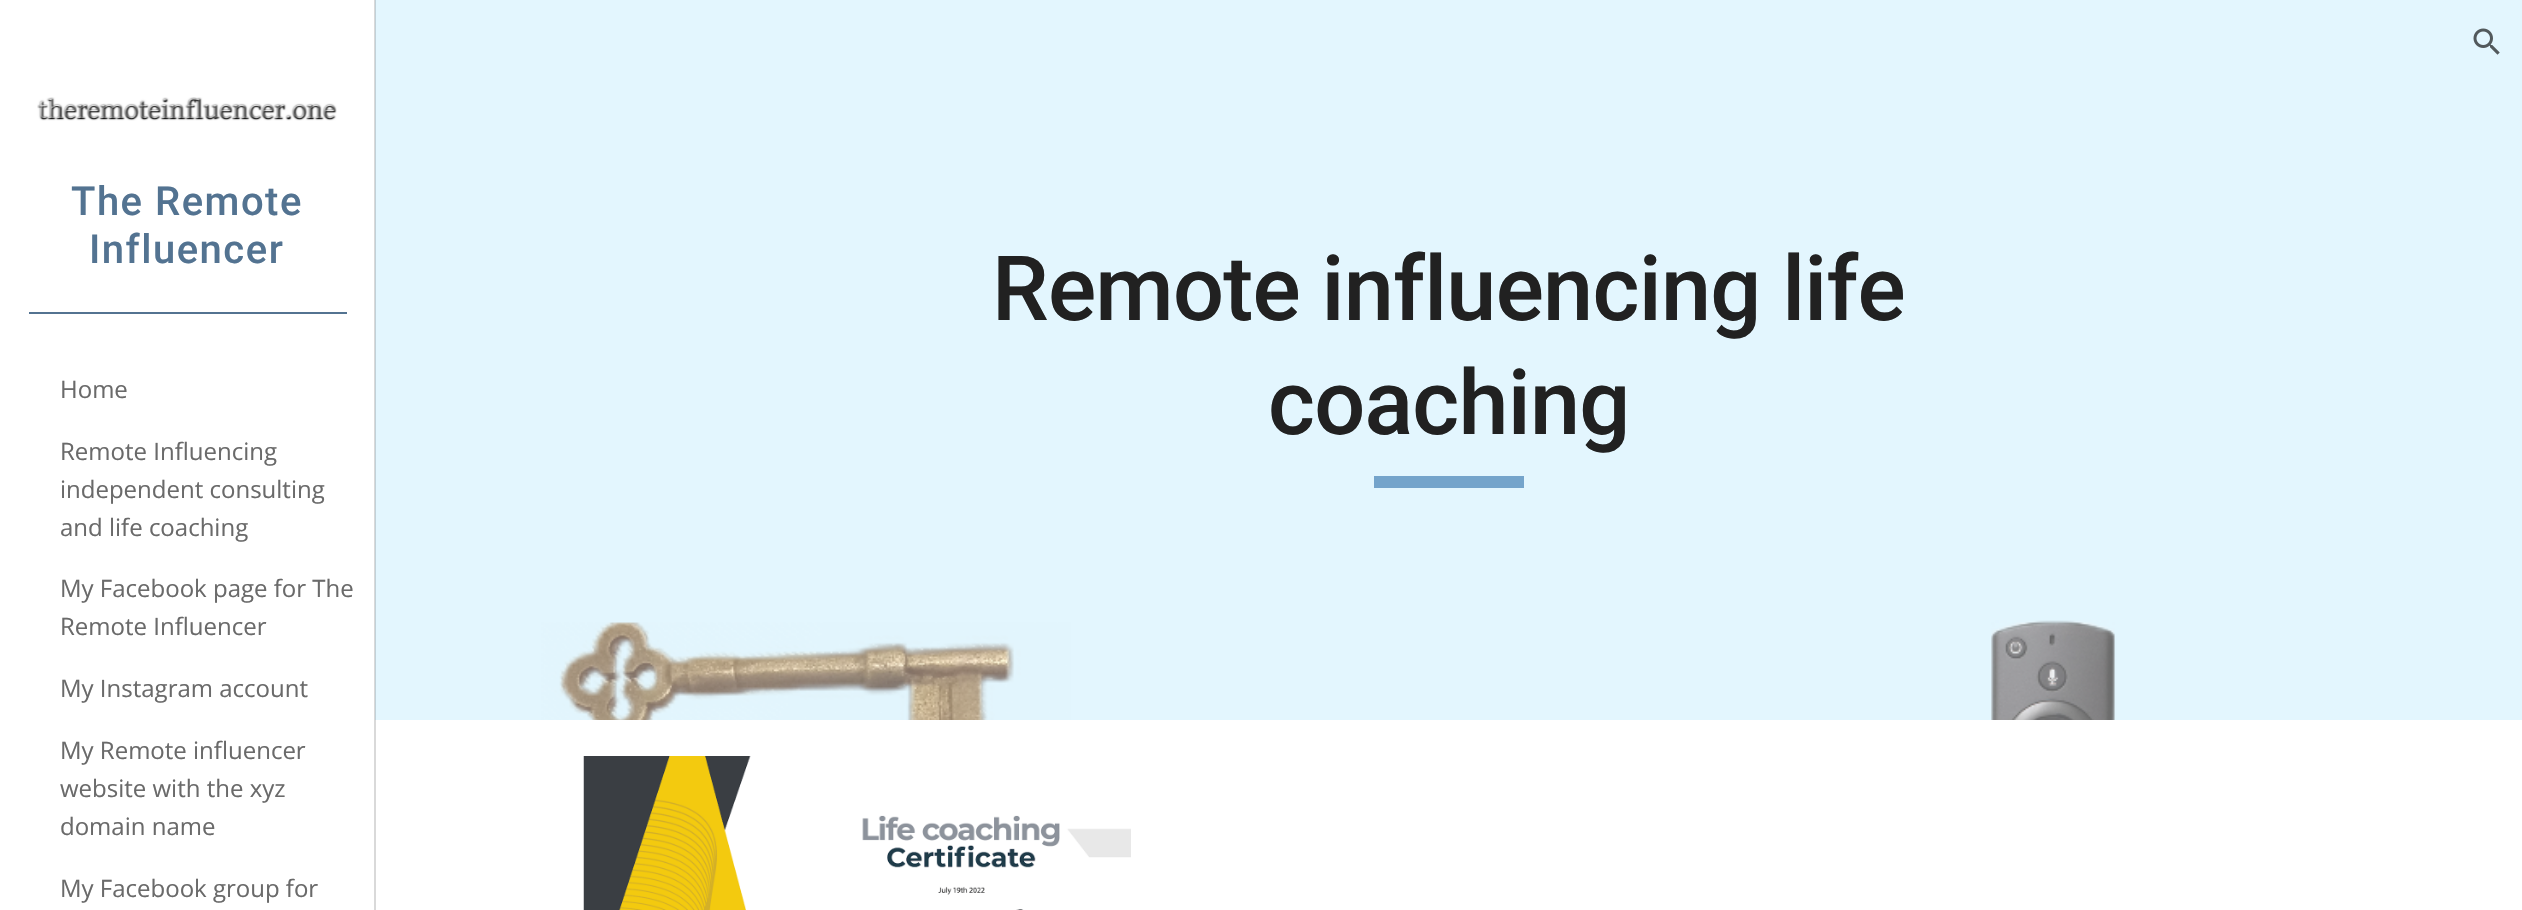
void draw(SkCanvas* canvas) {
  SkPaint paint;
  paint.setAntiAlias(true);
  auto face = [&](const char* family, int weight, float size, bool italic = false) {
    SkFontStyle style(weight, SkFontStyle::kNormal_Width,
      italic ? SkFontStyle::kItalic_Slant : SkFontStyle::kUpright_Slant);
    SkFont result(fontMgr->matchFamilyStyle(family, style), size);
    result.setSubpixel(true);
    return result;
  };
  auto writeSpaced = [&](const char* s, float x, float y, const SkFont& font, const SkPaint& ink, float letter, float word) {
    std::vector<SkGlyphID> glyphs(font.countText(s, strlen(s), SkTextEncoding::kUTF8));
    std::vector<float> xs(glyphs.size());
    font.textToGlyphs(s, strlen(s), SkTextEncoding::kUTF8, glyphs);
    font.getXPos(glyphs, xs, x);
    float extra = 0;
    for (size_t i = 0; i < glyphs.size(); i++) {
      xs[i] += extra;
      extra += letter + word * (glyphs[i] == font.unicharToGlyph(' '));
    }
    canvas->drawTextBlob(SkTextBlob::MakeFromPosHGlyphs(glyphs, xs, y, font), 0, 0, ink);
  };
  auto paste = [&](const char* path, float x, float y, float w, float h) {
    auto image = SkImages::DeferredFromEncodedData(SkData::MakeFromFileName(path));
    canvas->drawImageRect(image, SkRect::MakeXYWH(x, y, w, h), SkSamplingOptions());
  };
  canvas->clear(0xffffffff);
  paste("img/3.png", 375, 0, 2147, 720);
  paste("img/1.png", 2473, 28, 27, 27);
  paint.setColor(0x26000000);
  canvas->drawRect(SkRect::MakeXYWH(374, 0, 2, 910), paint);
  paste("img/2.png", 37, 97, 300, 24);
  paint.setColor(0xff537391);
  canvas->drawRect(SkRect::MakeXYWH(29, 312, 318, 2), paint);
  paint.setColor(0xff74a4cb);
  canvas->drawRect(SkRect::MakeXYWH(1374, 476, 150, 12), paint);
  paste("img/4.png", 583, 756, 548, 154);
  auto f0 = face("Roboto", 500, 40);
  paint.setColor(0xff537391);
  writeSpaced("The Remote", 71, 215, f0, paint, 1.5f, 0);
  writeSpaced("Influencer", 89, 263, f0, paint, 1.5f, 0);
  auto f1 = face("Open Sans", 400, 24);
  paint.setColor(0xff6a6a6a);
  {
    const struct { const char* s; float x, y; } items[] = {
      {"Home", 60, 398},
      {"Remote Influencing", 60, 460},
      {"independent consulting", 60, 498},
      {"and life coaching", 60, 536},
      {"My Facebook page for The", 60, 597},
      {"Remote Influencer", 60, 635},
      {"My Instagram account", 60, 697},
      {"My Remote influencer", 60, 759},
      {"website with the xyz", 60, 797},
      {"domain name", 60, 835},
      {"My Facebook group for", 60, 897},
    };
    for (auto [s, x, y] : items) {
      canvas->drawString(s, x, y, f1, paint);
    }
  }
  auto f2 = face("Roboto", 500, 90);
  paint.setColor(0xff212121);
  writeSpaced("Remote influencing life", 992, 320, f2, paint, -0.75f, 0);
  writeSpaced("coaching", 1268, 434, f2, paint, -0.75f, 0);
}
